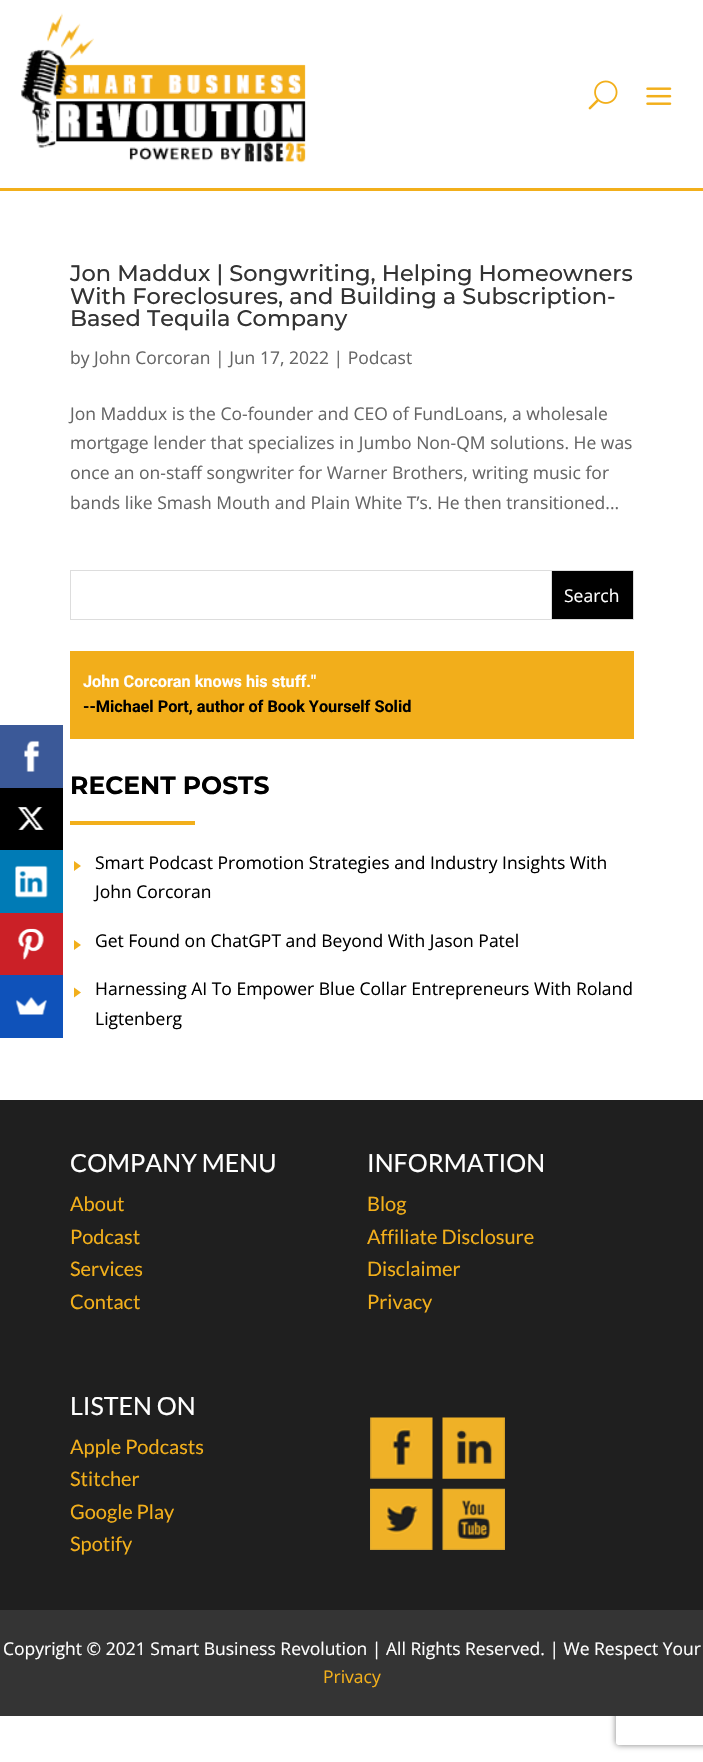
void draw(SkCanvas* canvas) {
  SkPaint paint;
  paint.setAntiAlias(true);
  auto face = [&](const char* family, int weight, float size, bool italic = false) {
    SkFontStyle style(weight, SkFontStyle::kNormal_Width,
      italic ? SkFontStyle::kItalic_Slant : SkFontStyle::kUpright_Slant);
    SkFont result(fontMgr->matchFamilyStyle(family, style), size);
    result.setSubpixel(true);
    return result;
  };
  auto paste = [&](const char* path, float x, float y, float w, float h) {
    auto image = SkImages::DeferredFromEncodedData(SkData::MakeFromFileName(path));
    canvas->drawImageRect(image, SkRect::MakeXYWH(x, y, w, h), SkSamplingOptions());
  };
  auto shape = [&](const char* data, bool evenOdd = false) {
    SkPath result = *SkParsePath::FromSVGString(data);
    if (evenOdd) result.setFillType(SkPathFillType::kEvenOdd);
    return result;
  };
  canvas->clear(0xffffffff);
  paint.setColor(0xfff2af1b);
  canvas->drawRect(SkRect::MakeXYWH(0, 188, 703, 3), paint);
  paste("img/1.png", 21, 13, 285, 150);
  paste("img/2.png", 588, 80, 30, 30);
  paste("img/3.png", 646, 87, 26, 18);
  paint.setStroke(true);
  paint.setStrokeWidth(1);
  paint.setColor(0xffdddddd);
  canvas->drawRect(SkRect::MakeXYWH(70.5f, 570.5f, 563, 49), paint);
  paint.setStroke(false);
  paint.setColor(0xff000000);
  canvas->drawRect(SkRect::MakeXYWH(551.5f, 570.5f, 82, 49), paint);
  paint.setStroke(true);
  paint.setColor(0xffdddddd);
  canvas->drawRect(SkRect::MakeXYWH(551.5f, 570.5f, 82, 49), paint);
  paint.setStroke(false);
  paint.setColor(0xfff2ae1b);
  canvas->drawRect(SkRect::MakeXYWH(70, 651, 564, 88), paint);
  paint.setColor(0xfff2af1b);
  canvas->drawRect(SkRect::MakeXYWH(70, 821, 125, 4), paint);
  canvas->drawPath(shape("M74 871V861L81 866Z"), paint);
  canvas->drawPath(shape("M74 950V940L81 945Z"), paint);
  canvas->drawPath(shape("M74 997.5V987.5L81 992.5Z"), paint);
  paint.setColor(0xff1f1f1f);
  canvas->drawRect(SkRect::MakeXYWH(0, 1100, 703, 510), paint);
  paste("img/4.png", 370, 1417, 63, 62);
  paste("img/5.png", 442, 1417, 63, 62);
  paste("img/6.png", 370, 1488, 63, 62);
  paste("img/7.png", 442, 1488, 63, 62);
  canvas->save();
  canvas->clipPath(shape("M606 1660H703V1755H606ZM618.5 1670H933.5C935 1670 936 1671 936 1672.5V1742.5C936 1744 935 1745 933.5 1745H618.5C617 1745 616 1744 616 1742.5V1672.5C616 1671 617 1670 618.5 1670Z", true), true);
  paint.setColor(0xff808080);
  paint.setMaskFilter(SkMaskFilter::MakeBlur(kNormal_SkBlurStyle, 3));
  canvas->drawRoundRect(SkRect::MakeXYWH(616, 1670, 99, 75), 2.5f, 2.5f, paint);
  paint.setMaskFilter(nullptr);
  canvas->restore();
  paint.setColor(0xff343434);
  canvas->drawRect(SkRect::MakeXYWH(0, 1610, 703, 106), paint);
  paint.setColor(0xff3b5998);
  canvas->drawRect(SkRect::MakeXYWH(0, 725, 63, 63), paint);
  paste("img/8.png", 24, 740, 16, 32);
  paint.setColor(0xff000000);
  canvas->drawRect(SkRect::MakeXYWH(0, 788, 63, 62), paint);
  paste("img/9.png", 17, 807, 27, 23);
  paint.setColor(0xff007bb6);
  canvas->drawRect(SkRect::MakeXYWH(0, 850, 63, 63), paint);
  paste("img/10.png", 15, 865, 33, 33);
  paint.setColor(0xffcb2027);
  canvas->drawRect(SkRect::MakeXYWH(0, 913, 63, 62), paint);
  paste("img/11.png", 18, 928, 26, 32);
  paint.setColor(0xff0f52ba);
  canvas->drawRect(SkRect::MakeXYWH(0, 975, 63, 63), paint);
  paste("img/12.png", 15, 997, 32, 18);
  auto f0 = face("Montserrat", 500, 22.5f);
  paint.setColor(0xff333333);
  {
    const struct { const char* s; float x, y; } items[] = {
      {"Jon Maddux | Songwriting, Helping Homeowners", 70, 281},
      {"With Foreclosures, and Building a Subscription-", 70, 304},
      {"Based Tequila Company", 70, 326},
    };
    for (auto [s, x, y] : items) {
      canvas->drawString(s, x, y, f0, paint);
    }
  }
  auto f1 = face("Open Sans", 400, 17.5f);
  paint.setColor(0xff666666);
  {
    const struct { const char* s; float x, y; } items[] = {
      {"by John Corcoran | Jun 17, 2022 | Podcast", 70, 364},
      {"Jon Maddux is the Co-founder and CEO of FundLoans, a wholesale", 70, 420},
      {"mortgage lender that specializes in Jumbo Non-QM solutions. He was", 70, 449},
      {"once an on-staff songwriter for Warner Brothers, writing music for", 70, 479},
      {"bands like Smash Mouth and Plain White T’s. He then transitioned...", 70, 509},
    };
    for (auto [s, x, y] : items) {
      canvas->drawString(s, x, y, f1, paint);
    }
  }
  paint.setColor(0xffffffff);
  canvas->drawString("Search", 564, 602, f1, paint);
  auto f2 = face("Roboto", 700, 16.25f);
  canvas->drawString("John Corcoran knows his stuff.\"", 83, 687, f2, paint);
  paint.setColor(0xff000000);
  canvas->drawString("--Michael Port, author of Book Yourself Solid", 83, 712, f2, paint);
  auto f3 = face("Montserrat", 700, 25);
  canvas->drawString("RECENT POSTS", 70, 794, f3, paint);
  {
    const struct { const char* s; float x, y; } items[] = {
      {"Smart Podcast Promotion Strategies and Industry Insights With", 95, 869},
      {"John Corcoran", 95, 898},
      {"Get Found on ChatGPT and Beyond With Jason Patel", 95, 947},
      {"Harnessing AI To Empower Blue Collar Entrepreneurs With Roland", 95, 995},
      {"Ligtenberg", 95, 1025},
    };
    for (auto [s, x, y] : items) {
      canvas->drawString(s, x, y, f1, paint);
    }
  }
  auto f4 = face("Lato", 400, 25);
  paint.setColor(0xffffffff);
  canvas->drawString("COMPANY MENU", 70, 1172, f4, paint);
  auto f5 = face("Lato", 400, 20);
  paint.setColor(0xfff2af1b);
  {
    const struct { const char* s; float x, y; } items[] = {
      {"About", 70, 1211},
      {"Podcast", 70, 1244},
      {"Services", 70, 1276},
      {"Contact", 70, 1309},
    };
    for (auto [s, x, y] : items) {
      canvas->drawString(s, x, y, f5, paint);
    }
  }
  paint.setColor(0xffffffff);
  canvas->drawString("INFORMATION", 367, 1172, f4, paint);
  paint.setColor(0xfff2af1b);
  {
    const struct { const char* s; float x, y; } items[] = {
      {"Blog", 367, 1211},
      {"Affiliate Disclosure", 367, 1244},
      {"Disclaimer", 367, 1276},
      {"Privacy", 367, 1309},
    };
    for (auto [s, x, y] : items) {
      canvas->drawString(s, x, y, f5, paint);
    }
  }
  paint.setColor(0xffffffff);
  canvas->drawString("LISTEN ON", 70, 1415, f4, paint);
  paint.setColor(0xfff2af1b);
  {
    const struct { const char* s; float x, y; } items[] = {
      {"Apple Podcasts", 70, 1454},
      {"Stitcher", 70, 1486},
      {"Google Play", 70, 1519},
      {"Spotify", 70, 1551},
    };
    for (auto [s, x, y] : items) {
      canvas->drawString(s, x, y, f5, paint);
    }
  }
  paint.setColor(0xffffffff);
  canvas->drawString("Copyright © 2021 Smart Business Revolution | All Rights Reserved. | We Respect Your", 3, 1655, f1, paint);
  paint.setColor(0xfff2af1b);
  canvas->drawString("Privacy", 323, 1683, f1, paint);
}
